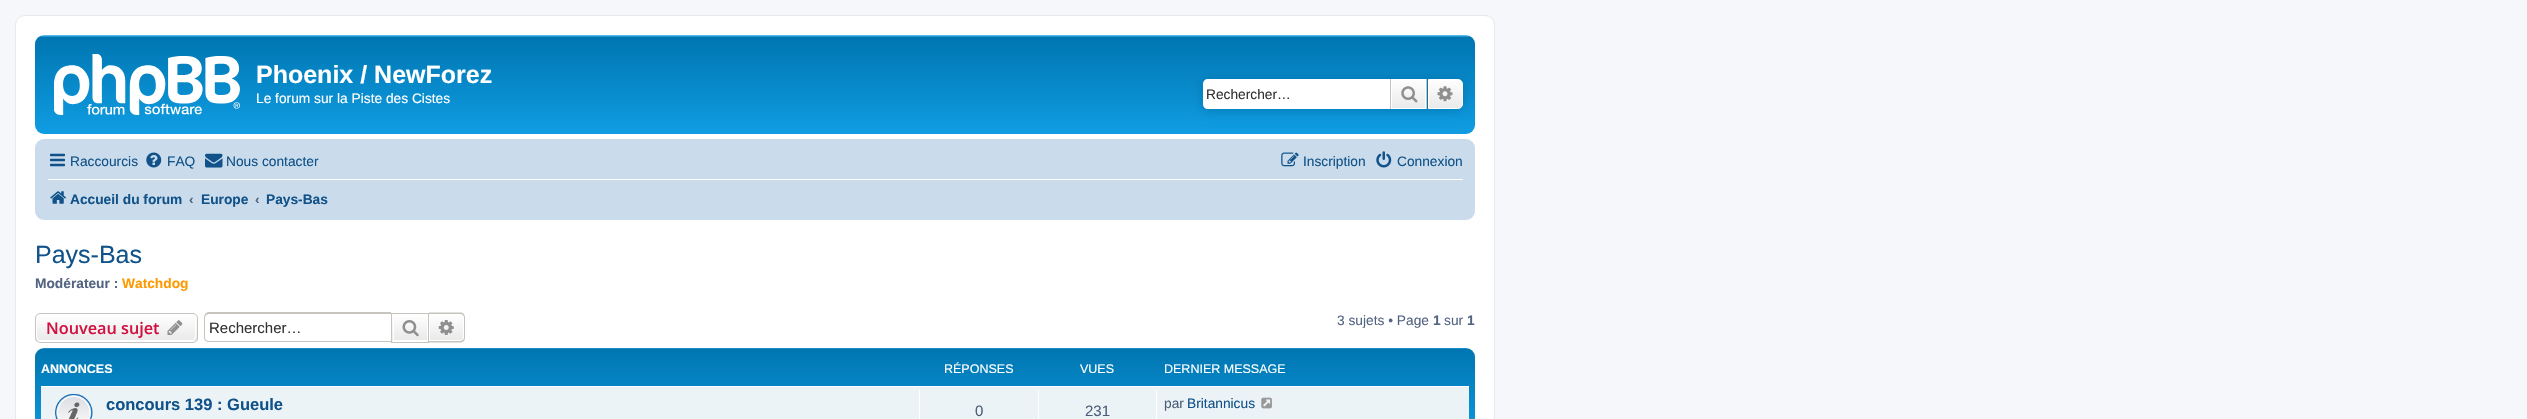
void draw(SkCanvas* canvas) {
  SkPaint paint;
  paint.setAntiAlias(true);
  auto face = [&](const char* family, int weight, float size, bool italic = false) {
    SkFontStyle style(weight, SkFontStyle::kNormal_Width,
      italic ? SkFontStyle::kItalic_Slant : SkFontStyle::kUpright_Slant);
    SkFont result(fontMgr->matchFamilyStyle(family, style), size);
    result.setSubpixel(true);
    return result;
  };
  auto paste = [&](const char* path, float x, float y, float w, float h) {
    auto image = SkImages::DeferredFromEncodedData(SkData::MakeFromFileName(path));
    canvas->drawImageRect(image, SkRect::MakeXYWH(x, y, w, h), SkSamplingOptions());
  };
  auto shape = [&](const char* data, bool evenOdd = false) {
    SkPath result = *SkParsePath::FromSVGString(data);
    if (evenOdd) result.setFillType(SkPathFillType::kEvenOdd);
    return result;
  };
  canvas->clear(0xfff5f7fa);
  paint.setColor(0xffffffff);
  canvas->drawRoundRect(SkRect::MakeXYWH(15.5f, 15.5f, 1479, 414), 9.5f, 9.5f, paint);
  paint.setStroke(true);
  paint.setStrokeWidth(1);
  paint.setColor(0xffe6e9ed);
  canvas->drawRoundRect(SkRect::MakeXYWH(15.5f, 15.5f, 1479, 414), 9.5f, 9.5f, paint);
  paint.setStroke(false);
  {
    const SkColor colors[] = {0xff6aceff, 0xff0076b1, 0xff12a3eb};
    const float stops[] = {0, 0.02f, 1};
    const SkPoint ends[] = {{755, 35}, {755, 150}};
    paint.setShader(SkGradientShader::MakeLinear(ends, colors, stops, 3, SkTileMode::kClamp));
    paint.setAlpha(255);
  }
  canvas->drawRoundRect(SkRect::MakeXYWH(35, 35, 1440, 99), 9, 9, paint);
  paste("img/1.png", 54, 54, 186, 61);
  paint.setShader(nullptr);
  paint.setColor(0xff0075b0);
  paint.setMaskFilter(SkMaskFilter::MakeBlur(kNormal_SkBlurStyle, 6));
  canvas->drawRoundRect(SkRect::MakeXYWH(1203, 79, 260, 30), 5, 5, paint);
  paint.setMaskFilter(nullptr);
  paint.setColor(0xffffffff);
  canvas->drawPath(shape("M1208 79H1390V109H1208C1205 109 1203 107 1203 104V84C1203 81 1205 79 1208 79Z"), paint);
  {
    const SkColor colors[] = {0xffffffff, 0xffe9e9e9};
    const float stops[] = {0, 1};
    const SkPoint ends[] = {{1409, 79}, {1409, 109}};
    paint.setShader(SkGradientShader::MakeLinear(ends, colors, stops, 2, SkTileMode::kClamp));
    paint.setAlpha(255);
  }
  canvas->drawRect(SkRect::MakeXYWH(1392, 80, 33, 28), paint);
  paint.setStroke(true);
  paint.setShader(nullptr);
  paint.setColor(0xffffffff);
  canvas->drawRect(SkRect::MakeXYWH(1391.5f, 79.5f, 34, 29), paint);
  paint.setStroke(false);
  paint.setColor(0xffc7c3bf);
  canvas->drawRect(SkRect::MakeXYWH(1426, 79, 1, 30), paint);
  canvas->drawRect(SkRect::MakeXYWH(1390, 79, 1, 30), paint);
  paste("img/2.png", 1401, 86, 17, 17);
  {
    const SkColor colors[] = {0xffffffff, 0xffe9e9e9};
    const float stops[] = {0, 1};
    const SkPoint ends[] = {{1445, 79}, {1445, 109}};
    paint.setShader(SkGradientShader::MakeLinear(ends, colors, stops, 2, SkTileMode::kClamp));
    paint.setAlpha(255);
  }
  canvas->drawPath(shape("M1428.5 79.5H1458C1460.5 79.5 1462.5 81.5 1462.5 84V104C1462.5 106.5 1460.5 108.5 1458 108.5H1428.5Z"), paint);
  paint.setStroke(true);
  paint.setShader(nullptr);
  paint.setColor(0xffffffff);
  canvas->drawPath(shape("M1428.5 79.5H1458C1460.5 79.5 1462.5 81.5 1462.5 84V104C1462.5 106.5 1460.5 108.5 1458 108.5H1428.5Z"), paint);
  paste("img/3.png", 1437, 86, 16, 16);
  paint.setStroke(false);
  paint.setColor(0xffcadceb);
  canvas->drawRoundRect(SkRect::MakeXYWH(35, 139, 1440, 81), 9, 9, paint);
  paste("img/4.png", 50, 153, 15, 14);
  paste("img/5.png", 146, 152, 16, 16);
  paste("img/6.png", 205, 153, 18, 15);
  paste("img/7.png", 1281, 152, 18, 15);
  paste("img/8.png", 1376, 151, 16, 17);
  paint.setColor(0xffffffff);
  canvas->drawRect(SkRect::MakeXYWH(48, 179, 1415, 1), paint);
  paste("img/9.png", 50, 191, 16, 13);
  canvas->save();
  canvas->clipPath(shape("M40 313H193C196 313 198 315 198 318V338C198 341 196 343 193 343H40C37 343 35 341 35 338V318C35 315 37 313 40 313Z"), true);
  {
    const SkColor colors[] = {0xffffffff, 0xffe9e9e9};
    const float stops[] = {0, 1};
    const SkPoint ends[] = {{116, 314}, {116, 341}};
    paint.setShader(SkGradientShader::MakeLinear(ends, colors, stops, 2, SkTileMode::kClamp));
    paint.setAlpha(255);
  }
  canvas->drawRect(SkRect::MakeXYWH(35, 314, 163, 27), paint);
  canvas->restore();
  paint.setStroke(true);
  paint.setShader(nullptr);
  paint.setColor(0xffffffff);
  canvas->drawRoundRect(SkRect::MakeXYWH(36.5f, 314.5f, 159, 26), 3.5f, 3.5f, paint);
  paint.setColor(0xffc7c3bf);
  canvas->drawRoundRect(SkRect::MakeXYWH(35.5f, 313.5f, 162, 29), 4.5f, 4.5f, paint);
  paste("img/10.png", 167, 320, 16, 15);
  paint.setStroke(false);
  canvas->drawPath(shape("M209 312H391V342H209C206 342 204 340 204 338V318C204 315 206 312 209 312ZM209 314H391V341H209C207 341 205 340 205 338V318C205 315 207 314 209 314Z", true), paint);
  {
    const SkColor colors[] = {0xffffffff, 0xffe9e9e9};
    const float stops[] = {0, 1};
    const SkPoint ends[] = {{410, 314}, {410, 341}};
    paint.setShader(SkGradientShader::MakeLinear(ends, colors, stops, 2, SkTileMode::kClamp));
    paint.setAlpha(255);
  }
  canvas->drawRect(SkRect::MakeXYWH(392, 317, 35, 24), paint);
  paint.setStroke(true);
  paint.setShader(nullptr);
  paint.setColor(0xffffffff);
  canvas->drawRect(SkRect::MakeXYWH(393.5f, 314.5f, 34, 26), paint);
  paint.setColor(0xffc7c3bf);
  canvas->drawRect(SkRect::MakeXYWH(391.5f, 313.5f, 37, 29), paint);
  paste("img/11.png", 402, 320, 17, 17);
  paint.setStroke(false);
  {
    const SkColor colors[] = {0xffffffff, 0xffe9e9e9};
    const float stops[] = {0, 1};
    const SkPoint ends[] = {{446, 314}, {446, 341}};
    paint.setShader(SkGradientShader::MakeLinear(ends, colors, stops, 2, SkTileMode::kClamp));
    paint.setAlpha(255);
  }
  canvas->drawPath(shape("M429.5 314.5H460C462 314.5 463.5 316 463.5 318V337C463.5 339 462 340.5 460 340.5H429.5Z"), paint);
  paint.setStroke(true);
  paint.setShader(nullptr);
  paint.setColor(0xffffffff);
  canvas->drawPath(shape("M429.5 314.5H460C462 314.5 463.5 316 463.5 318V337C463.5 339 462 340.5 460 340.5H429.5Z"), paint);
  paint.setStroke(false);
  paint.setColor(0xffc7c3bf);
  canvas->drawPath(shape("M429 312.5H460C463 312.5 465 314.5 465 317.5V337.5C465 340.5 463 342.5 460 342.5H429ZM429 314H460C462 314 464 315.5 464 317.5V337.5C464 339.5 462 341 460 341H429Z", true), paint);
  paste("img/12.png", 438, 320, 16, 15);
  {
    const SkColor colors[] = {0xff6aceff, 0xff0076b1, 0xff12a3eb, 0xff12a3eb};
    const float stops[] = {0, 0.01f, 0.58f, 1};
    const SkPoint ends[] = {{755, 347}, {755, 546}};
    paint.setShader(SkGradientShader::MakeLinear(ends, colors, stops, 4, SkTileMode::kClamp));
    paint.setAlpha(255);
  }
  canvas->drawRoundRect(SkRect::MakeXYWH(35, 348, 1440, 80), 9, 9, paint);
  paint.setShader(nullptr);
  paint.setColor(0xffecf3f7);
  canvas->drawRect(SkRect::MakeXYWH(41, 387, 1428, 32), paint);
  paint.setColor(0xffffffff);
  canvas->drawRect(SkRect::MakeXYWH(41, 386, 1428, 1), paint);
  paste("img/13.png", 55, 393, 38, 26);
  {
    const struct { float x, y, w, h; SkColor color; } items[] = {
      {919, 390, 1, 29, 0xffffffff},
      {1038, 390, 1, 29, 0xffffffff},
      {1156, 390, 1, 29, 0xffffffff},
    };
    for (auto [x, y, w, h, color] : items) {
      paint.setColor(color);
      canvas->drawRect(SkRect::MakeXYWH(x, y, w, h), paint);
    }
  }
  paste("img/14.png", 1261, 397, 11, 12);
  auto f0 = face("Liberation Sans", 700, 25);
  canvas->drawString("Phoenix / NewForez", 256, 83, f0, paint);
  auto f1 = face("Liberation Sans", 400, 13.75f);
  canvas->drawString("Le forum sur la Piste des Cistes", 256, 103, f1, paint);
  paint.setColor(0xff333333);
  canvas->drawString("Rechercher…", 1206, 99, f1, paint);
  paint.setColor(0xff105289);
  {
    const struct { const char* s; float x, y; } items[] = {
      {"Raccourcis", 70, 166},
      {"FAQ", 167, 166},
      {"Nous contacter", 226, 166},
      {"Inscription", 1303, 166},
      {"Connexion", 1397, 166},
    };
    for (auto [s, x, y] : items) {
      canvas->drawString(s, x, y, f1, paint);
    }
  }
  auto f2 = face("Liberation Sans", 700, 13.75f);
  canvas->drawString("Accueil du forum", 70, 204, f2, paint);
  paint.setColor(0xff536482);
  canvas->drawString("‹", 189, 204, f2, paint);
  paint.setColor(0xff105289);
  canvas->drawString("Europe", 201, 204, f2, paint);
  paint.setColor(0xff536482);
  canvas->drawString("‹", 255, 204, f2, paint);
  paint.setColor(0xff105289);
  canvas->drawString("Pays-Bas", 266, 204, f2, paint);
  auto f3 = face("Liberation Sans", 400, 25);
  canvas->drawString("Pays-Bas", 35, 263, f3, paint);
  paint.setColor(0xff536482);
  canvas->drawString("Modérateur :", 35, 288, f2, paint);
  paint.setColor(0xffff9900);
  canvas->drawString("Watchdog", 122, 288, f2, paint);
  auto f4 = face("Open Sans", 600, 16.25f);
  paint.setColor(0xffd31141);
  canvas->drawString("Nouveau sujet", 46, 334, f4, paint);
  auto f5 = face("Liberation Sans", 400, 15);
  paint.setColor(0xff333333);
  canvas->drawString("Rechercher…", 209, 333, f5, paint);
  paint.setColor(0xff536482);
  canvas->drawString("3 sujets • Page", 1337, 325, f1, paint);
  canvas->drawString("1", 1433, 325, f2, paint);
  canvas->drawString("sur", 1444, 325, f1, paint);
  canvas->drawString("1", 1467, 325, f2, paint);
  auto f6 = face("Liberation Sans", 700, 12.5f);
  paint.setColor(0xffffffff);
  canvas->drawString("ANNONCES", 41, 373, f6, paint);
  auto f7 = face("Liberation Sans", 400, 12.5f);
  {
    const struct { const char* s; float x, y; } items[] = {
      {"RÉPONSES", 944, 373},
      {"VUES", 1080, 373},
      {"DERNIER MESSAGE", 1164, 373},
    };
    for (auto [s, x, y] : items) {
      canvas->drawString(s, x, y, f7, paint);
    }
  }
  auto f8 = face("Liberation Sans", 700, 16.5f);
  paint.setColor(0xff105289);
  canvas->drawString("concours 139 : Gueule", 106, 410, f8, paint);
  paint.setColor(0xff4c5d77);
  canvas->drawString("0", 975, 416, f5, paint);
  canvas->drawString("231", 1085, 416, f5, paint);
  canvas->drawString("par", 1164, 408, f1, paint);
  paint.setColor(0xff105289);
  canvas->drawString("Britannicus", 1187, 408, f1, paint);
}
